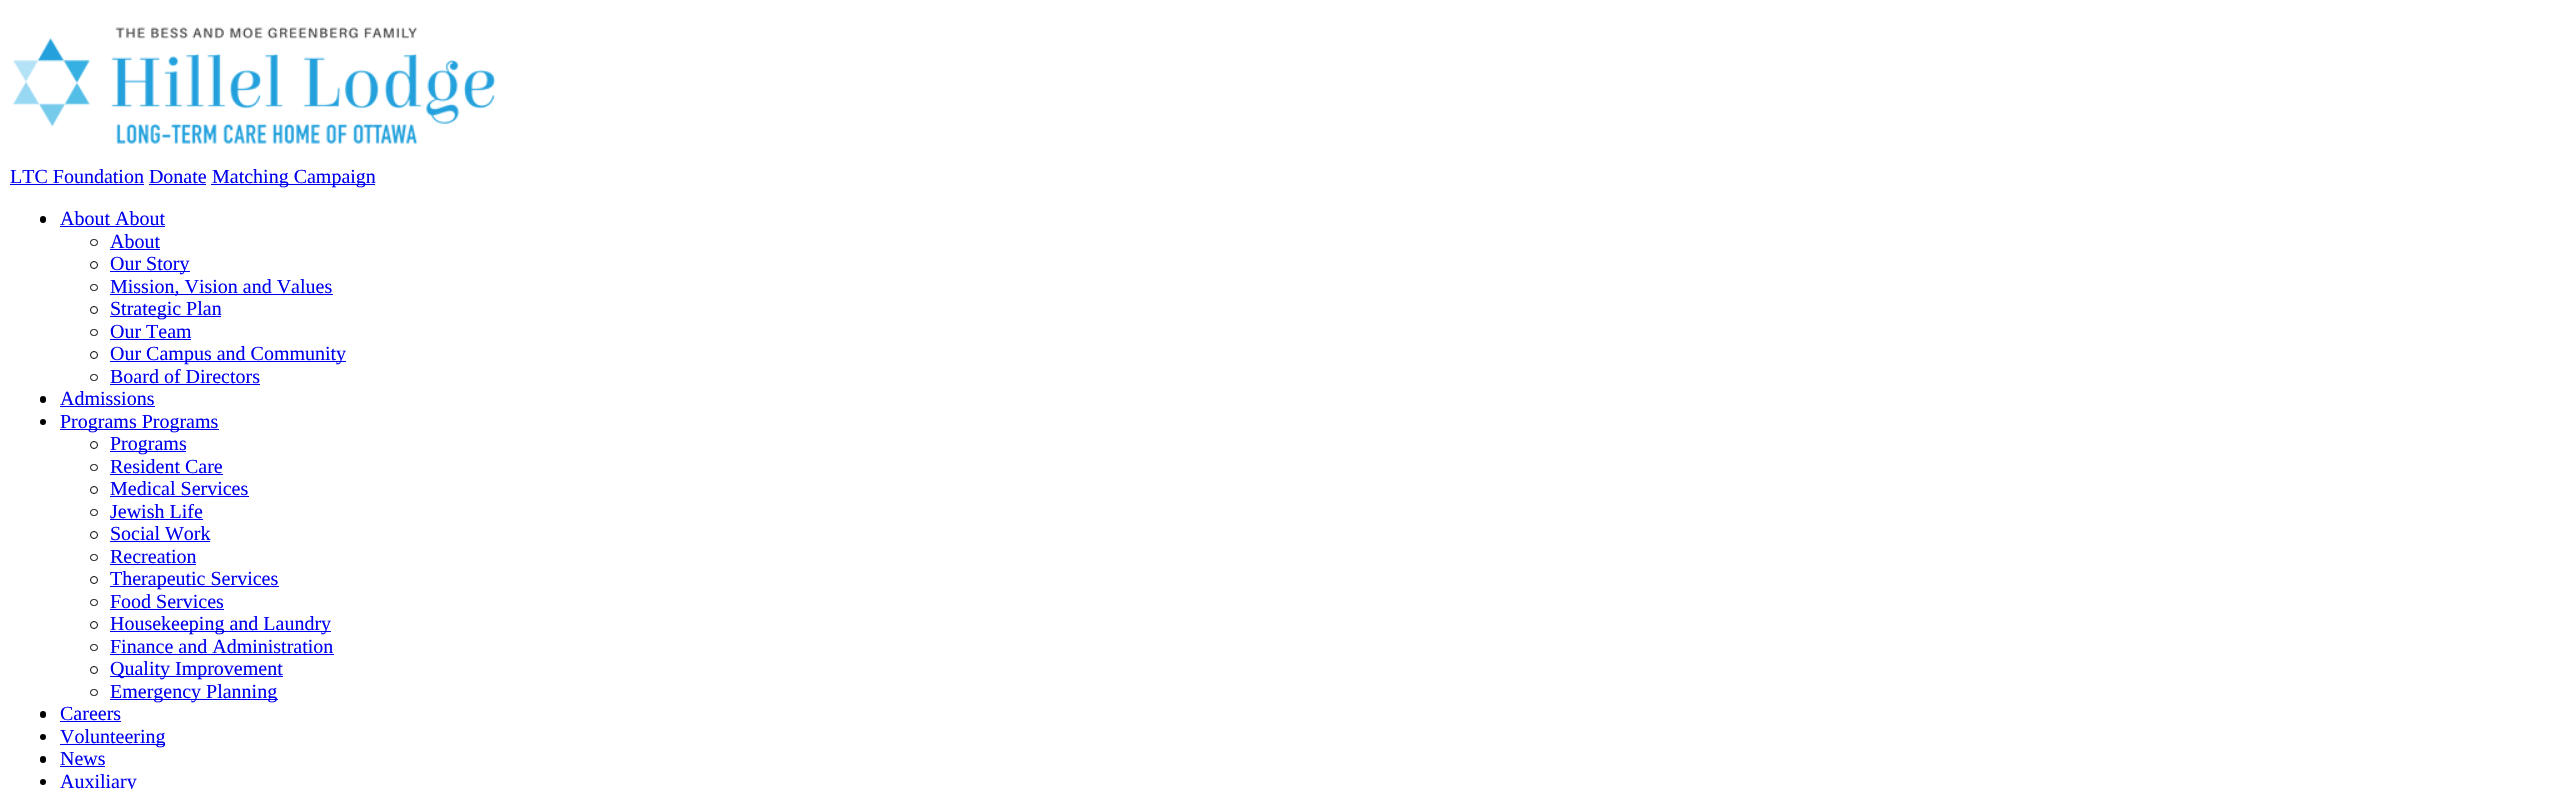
void draw(SkCanvas* canvas) {
  SkPaint paint;
  paint.setAntiAlias(true);
  auto face = [&](const char* family, int weight, float size, bool italic = false) {
    SkFontStyle style(weight, SkFontStyle::kNormal_Width,
      italic ? SkFontStyle::kItalic_Slant : SkFontStyle::kUpright_Slant);
    SkFont result(fontMgr->matchFamilyStyle(family, style), size);
    result.setSubpixel(true);
    return result;
  };
  auto paste = [&](const char* path, float x, float y, float w, float h) {
    auto image = SkImages::DeferredFromEncodedData(SkData::MakeFromFileName(path));
    canvas->drawImageRect(image, SkRect::MakeXYWH(x, y, w, h), SkSamplingOptions());
  };
  canvas->clear(0xffffffff);
  paste("img/1.png", 13, 27, 483, 117);
  {
    const struct { float x, y, w, h; SkColor color; } items[] = {
      {10, 184, 134, 1, 0xff0000ee},
      {211, 184, 164, 1, 0xff0000ee},
      {149, 184, 57, 1, 0xff0000ee},
    };
    for (auto [x, y, w, h, color] : items) {
      paint.setColor(color);
      canvas->drawRect(SkRect::MakeXYWH(x, y, w, h), paint);
    }
  }
  paint.setColor(0xff000000);
  canvas->drawRoundRect(SkRect::MakeXYWH(40, 216, 6, 7), 3, 3, paint);
  paint.setColor(0xff0000ee);
  canvas->drawRect(SkRect::MakeXYWH(60, 226, 105, 1), paint);
  paint.setStroke(true);
  paint.setStrokeWidth(1);
  paint.setColor(0xff000000);
  canvas->drawRoundRect(SkRect::MakeXYWH(90.5f, 239.5f, 7, 6), 3, 3, paint);
  paint.setStroke(false);
  paint.setColor(0xff0000ee);
  canvas->drawRect(SkRect::MakeXYWH(110, 249, 50, 1), paint);
  paint.setStroke(true);
  paint.setColor(0xff000000);
  canvas->drawCircle(94, 265, 3.5f, paint);
  paint.setStroke(false);
  paint.setColor(0xff0000ee);
  canvas->drawRect(SkRect::MakeXYWH(110, 271, 80, 1), paint);
  paint.setStroke(true);
  paint.setColor(0xff000000);
  canvas->drawRoundRect(SkRect::MakeXYWH(90.5f, 284.5f, 7, 6), 3, 3, paint);
  paint.setStroke(false);
  paint.setColor(0xff0000ee);
  canvas->drawRect(SkRect::MakeXYWH(110, 294, 223, 1), paint);
  paint.setStroke(true);
  paint.setColor(0xff000000);
  canvas->drawCircle(94, 310, 3.5f, paint);
  paint.setStroke(false);
  paint.setColor(0xff0000ee);
  canvas->drawRect(SkRect::MakeXYWH(110, 316, 111, 1), paint);
  paint.setStroke(true);
  paint.setColor(0xff000000);
  canvas->drawRoundRect(SkRect::MakeXYWH(90.5f, 329.5f, 7, 6), 3, 3, paint);
  paint.setStroke(false);
  paint.setColor(0xff0000ee);
  canvas->drawRect(SkRect::MakeXYWH(110, 339, 81, 1), paint);
  paint.setStroke(true);
  paint.setColor(0xff000000);
  canvas->drawCircle(94, 355, 3.5f, paint);
  paint.setStroke(false);
  paint.setColor(0xff0000ee);
  canvas->drawRect(SkRect::MakeXYWH(110, 361, 236, 1), paint);
  paint.setStroke(true);
  paint.setColor(0xff000000);
  canvas->drawRoundRect(SkRect::MakeXYWH(90.5f, 374.5f, 7, 6), 3, 3, paint);
  paint.setStroke(false);
  paint.setColor(0xff0000ee);
  canvas->drawRect(SkRect::MakeXYWH(110, 384, 150, 1), paint);
  paint.setColor(0xff000000);
  canvas->drawRoundRect(SkRect::MakeXYWH(40, 396, 6, 7), 3, 3, paint);
  paint.setColor(0xff0000ee);
  canvas->drawRect(SkRect::MakeXYWH(60, 406, 95, 1), paint);
  paint.setColor(0xff000000);
  canvas->drawCircle(43, 422, 3, paint);
  paint.setColor(0xff0000ee);
  canvas->drawRect(SkRect::MakeXYWH(60, 429, 159, 1), paint);
  paint.setStroke(true);
  paint.setColor(0xff000000);
  canvas->drawCircle(94, 445, 3.5f, paint);
  paint.setStroke(false);
  paint.setColor(0xff0000ee);
  canvas->drawRect(SkRect::MakeXYWH(110, 451, 76, 1), paint);
  paint.setStroke(true);
  paint.setColor(0xff000000);
  canvas->drawRoundRect(SkRect::MakeXYWH(90.5f, 464.5f, 7, 6), 3, 3, paint);
  paint.setStroke(false);
  paint.setColor(0xff0000ee);
  canvas->drawRect(SkRect::MakeXYWH(110, 474, 113, 1), paint);
  paint.setStroke(true);
  paint.setColor(0xff000000);
  canvas->drawCircle(94, 490, 3.5f, paint);
  paint.setStroke(false);
  paint.setColor(0xff0000ee);
  canvas->drawRect(SkRect::MakeXYWH(110, 496, 139, 1), paint);
  paint.setStroke(true);
  paint.setColor(0xff000000);
  canvas->drawRoundRect(SkRect::MakeXYWH(90.5f, 509.5f, 7, 6), 3, 3, paint);
  paint.setStroke(false);
  paint.setColor(0xff0000ee);
  canvas->drawRect(SkRect::MakeXYWH(110, 519, 93, 1), paint);
  paint.setStroke(true);
  paint.setColor(0xff000000);
  canvas->drawCircle(94, 535, 3.5f, paint);
  paint.setStroke(false);
  paint.setColor(0xff0000ee);
  canvas->drawRect(SkRect::MakeXYWH(110, 541, 100, 1), paint);
  paint.setStroke(true);
  paint.setColor(0xff000000);
  canvas->drawRoundRect(SkRect::MakeXYWH(90.5f, 554.5f, 7, 6), 3, 3, paint);
  paint.setStroke(false);
  paint.setColor(0xff0000ee);
  canvas->drawRect(SkRect::MakeXYWH(110, 564, 86, 1), paint);
  paint.setStroke(true);
  paint.setColor(0xff000000);
  canvas->drawCircle(94, 580, 3.5f, paint);
  paint.setStroke(false);
  paint.setColor(0xff0000ee);
  canvas->drawRect(SkRect::MakeXYWH(110, 586, 169, 1), paint);
  paint.setStroke(true);
  paint.setColor(0xff000000);
  canvas->drawRoundRect(SkRect::MakeXYWH(90.5f, 599.5f, 7, 6), 3, 3, paint);
  paint.setStroke(false);
  paint.setColor(0xff0000ee);
  canvas->drawRect(SkRect::MakeXYWH(110, 609, 114, 1), paint);
  paint.setStroke(true);
  paint.setColor(0xff000000);
  canvas->drawCircle(94, 625, 3.5f, paint);
  paint.setStroke(false);
  paint.setColor(0xff0000ee);
  canvas->drawRect(SkRect::MakeXYWH(110, 631, 221, 1), paint);
  paint.setStroke(true);
  paint.setColor(0xff000000);
  canvas->drawRoundRect(SkRect::MakeXYWH(90.5f, 644.5f, 7, 6), 3, 3, paint);
  paint.setStroke(false);
  paint.setColor(0xff0000ee);
  canvas->drawRect(SkRect::MakeXYWH(110, 654, 224, 1), paint);
  paint.setStroke(true);
  paint.setColor(0xff000000);
  canvas->drawCircle(94, 670, 3.5f, paint);
  paint.setStroke(false);
  paint.setColor(0xff0000ee);
  canvas->drawRect(SkRect::MakeXYWH(110, 676, 173, 1), paint);
  paint.setStroke(true);
  paint.setColor(0xff000000);
  canvas->drawRoundRect(SkRect::MakeXYWH(90.5f, 689.5f, 7, 6), 3, 3, paint);
  paint.setStroke(false);
  paint.setColor(0xff0000ee);
  canvas->drawRect(SkRect::MakeXYWH(110, 699, 168, 1), paint);
  paint.setColor(0xff000000);
  canvas->drawRoundRect(SkRect::MakeXYWH(40, 711, 6, 7), 3, 3, paint);
  paint.setColor(0xff0000ee);
  canvas->drawRect(SkRect::MakeXYWH(60, 721, 61, 1), paint);
  paint.setColor(0xff000000);
  canvas->drawCircle(43, 737, 3, paint);
  paint.setColor(0xff0000ee);
  canvas->drawRect(SkRect::MakeXYWH(60, 744, 105, 1), paint);
  paint.setColor(0xff000000);
  canvas->drawRoundRect(SkRect::MakeXYWH(40, 756, 6, 7), 3, 3, paint);
  paint.setColor(0xff0000ee);
  canvas->drawRect(SkRect::MakeXYWH(60, 766, 45, 1), paint);
  paint.setColor(0xff000000);
  canvas->drawCircle(43, 782, 3, paint);
  auto f0 = face("Liberation Serif", 400, 20);
  paint.setColor(0xff0000ee);
  {
    const struct { const char* s; float x, y; } items[] = {
      {"LTC Foundation Donate", 10, 183},
      {"Matching Campaign", 212, 183},
      {"About About", 60, 225},
      {"About", 110, 248},
      {"Our Story", 110, 270},
      {"Mission, Vision and Values", 110, 293},
      {"Strategic Plan", 110, 315},
      {"Our Team", 110, 338},
      {"Our Campus and Community", 110, 360},
      {"Board of Directors", 110, 383},
      {"Admissions", 60, 405},
      {"Programs Programs", 60, 428},
      {"Programs", 110, 450},
      {"Resident Care", 110, 473},
      {"Medical Services", 110, 495},
      {"Jewish Life", 110, 518},
      {"Social Work", 110, 540},
      {"Recreation", 110, 563},
      {"Therapeutic Services", 110, 585},
      {"Food Services", 110, 608},
      {"Housekeeping and Laundry", 110, 630},
      {"Finance and Administration", 110, 653},
      {"Quality Improvement", 110, 675},
      {"Emergency Planning", 110, 698},
      {"Careers", 60, 720},
      {"Volunteering", 60, 743},
      {"News", 60, 765},
      {"Auxiliary", 60, 788},
    };
    for (auto [s, x, y] : items) {
      canvas->drawString(s, x, y, f0, paint);
    }
  }
}
